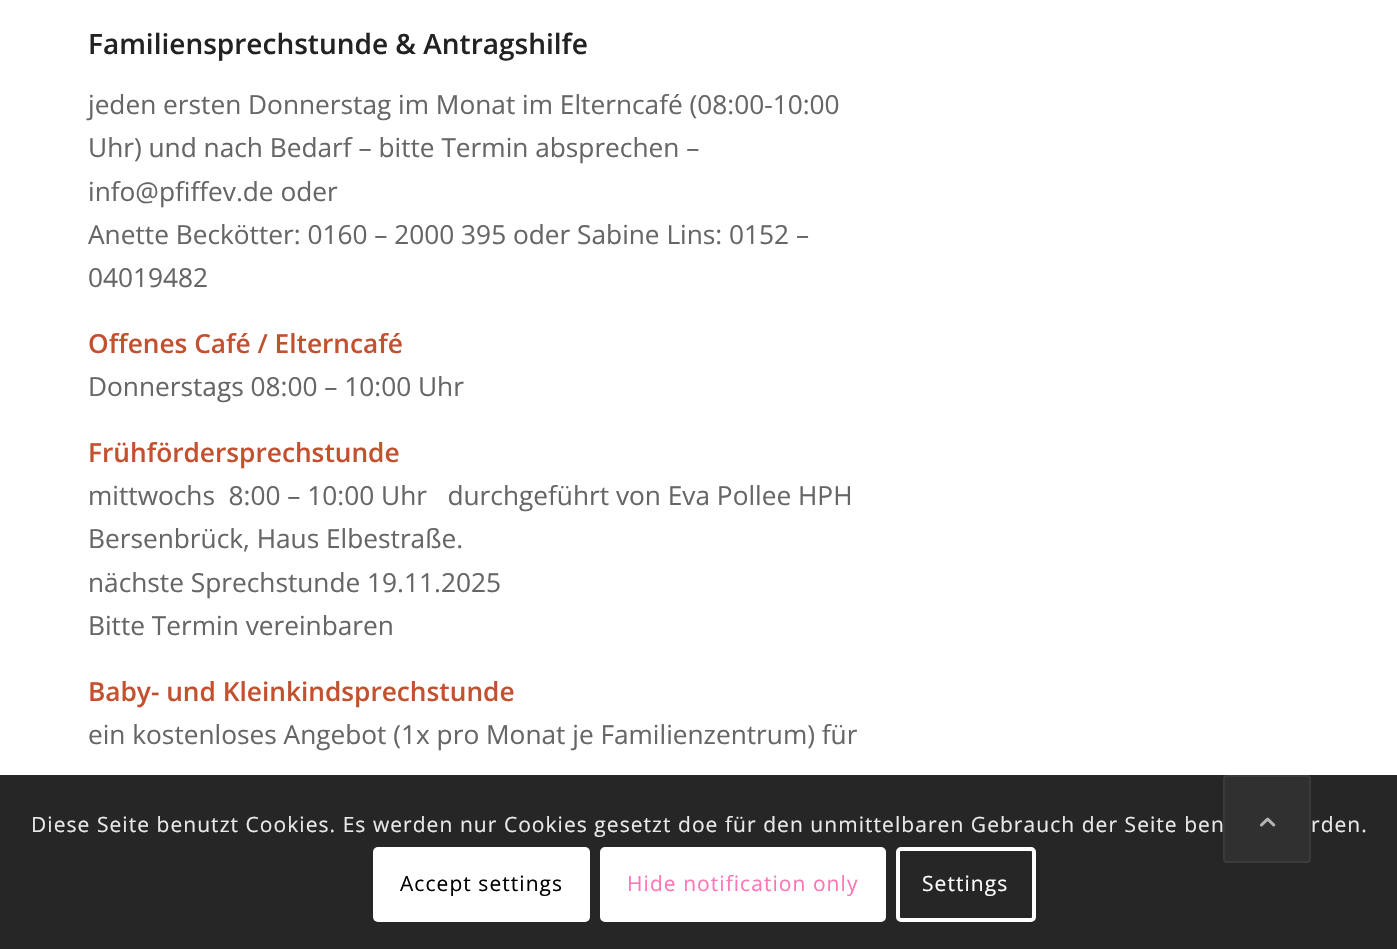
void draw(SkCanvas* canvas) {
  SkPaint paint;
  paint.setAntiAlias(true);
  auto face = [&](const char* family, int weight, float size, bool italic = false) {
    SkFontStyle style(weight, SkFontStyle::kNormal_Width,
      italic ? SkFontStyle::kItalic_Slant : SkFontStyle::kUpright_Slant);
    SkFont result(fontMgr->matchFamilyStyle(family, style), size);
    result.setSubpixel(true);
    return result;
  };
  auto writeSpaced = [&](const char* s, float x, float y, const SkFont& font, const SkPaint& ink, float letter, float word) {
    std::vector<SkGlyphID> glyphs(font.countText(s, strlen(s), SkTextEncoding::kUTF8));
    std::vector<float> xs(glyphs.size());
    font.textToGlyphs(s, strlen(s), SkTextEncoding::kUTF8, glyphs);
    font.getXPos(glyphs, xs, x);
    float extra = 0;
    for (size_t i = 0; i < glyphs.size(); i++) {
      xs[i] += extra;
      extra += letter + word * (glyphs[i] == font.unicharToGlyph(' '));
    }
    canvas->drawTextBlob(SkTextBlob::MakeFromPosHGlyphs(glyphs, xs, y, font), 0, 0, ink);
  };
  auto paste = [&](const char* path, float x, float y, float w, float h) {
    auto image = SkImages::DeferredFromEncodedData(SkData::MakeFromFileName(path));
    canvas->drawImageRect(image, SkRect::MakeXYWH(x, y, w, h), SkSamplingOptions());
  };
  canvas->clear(0xffffffff);
  paint.setColor(0xd9000000);
  canvas->drawRect(SkRect::MakeXYWH(0, 775, 1397, 174), paint);
  paint.setColor(0xb3333333);
  canvas->drawRoundRect(SkRect::MakeXYWH(1224, 776, 86, 86), 3, 3, paint);
  paint.setStroke(true);
  paint.setStrokeWidth(2);
  paint.setColor(0xff3b3b3b);
  canvas->drawRoundRect(SkRect::MakeXYWH(1224, 776, 86, 86), 3, 3, paint);
  paste("img/1.png", 1260, 817, 16, 10);
  paint.setStroke(false);
  paint.setColor(0xffffffff);
  canvas->drawRoundRect(SkRect::MakeXYWH(373, 847, 217, 75), 5, 5, paint);
  canvas->drawRoundRect(SkRect::MakeXYWH(602, 849, 282, 71), 3, 3, paint);
  paint.setStroke(true);
  paint.setStrokeWidth(4);
  canvas->drawRoundRect(SkRect::MakeXYWH(602, 849, 282, 71), 3, 3, paint);
  canvas->drawRoundRect(SkRect::MakeXYWH(898, 849, 136, 71), 3, 3, paint);
  auto f0 = face("Open Sans", 600, 28);
  paint.setStroke(false);
  paint.setColor(0xff222222);
  canvas->drawString("Familiensprechstunde & Antragshilfe", 88, 54, f0, paint);
  auto f1 = face("Open Sans", 400, 26.25f);
  paint.setColor(0xff666666);
  {
    const struct { const char* s; float x, y; } items[] = {
      {"jeden ersten Donnerstag im Monat im Elterncafé (08:00-10:00", 88, 114},
      {"Uhr) und nach Bedarf – bitte Termin absprechen –", 88, 157},
      {"info@pfiffev.de oder", 88, 201},
      {"Anette Beckötter: 0160 – 2000 395 oder Sabine Lins: 0152 –", 88, 244},
      {"04019482", 88, 287},
    };
    for (auto [s, x, y] : items) {
      canvas->drawString(s, x, y, f1, paint);
    }
  }
  auto f2 = face("Open Sans", 600, 26.25f);
  paint.setColor(0xffc3512f);
  canvas->drawString("Offenes Café / Elterncafé", 88, 353, f2, paint);
  paint.setColor(0xff666666);
  canvas->drawString("Donnerstags 08:00 – 10:00 Uhr", 88, 396, f1, paint);
  paint.setColor(0xffc3512f);
  canvas->drawString("Frühfördersprechstunde", 88, 462, f2, paint);
  paint.setColor(0xff666666);
  {
    const struct { const char* s; float x, y; } items[] = {
      {"mittwochs  8:00 – 10:00 Uhr   durchgeführt von Eva Pollee HPH", 88, 505},
      {"Bersenbrück, Haus Elbestraße.", 88, 548},
      {"nächste Sprechstunde 19.11.2025", 88, 592},
      {"Bitte Termin vereinbaren", 88, 635},
    };
    for (auto [s, x, y] : items) {
      canvas->drawString(s, x, y, f1, paint);
    }
  }
  paint.setColor(0xffc3512f);
  canvas->drawString("Baby- und Kleinkindsprechstunde", 88, 701, f2, paint);
  paint.setColor(0xff666666);
  canvas->drawString("ein kostenloses Angebot (1x pro Monat je Familienzentrum) für", 88, 744, f1, paint);
  auto f3 = face("Open Sans", 400, 21);
  paint.setColor(0xffe9e9e9);
  writeSpaced("Diese Seite benutzt Cookies. Es werden nur Cookies gesetzt doe für den unmittelbaren Gebrauch der Seite ben", 31, 832, f3, paint, 1.05f, 0);
  writeSpaced("rden.", 1311, 832, f3, paint, 1.05f, 0);
  paint.setColor(0xff000000);
  writeSpaced("Accept settings", 400, 891, f3, paint, 1.05f, 0);
  paint.setColor(0xffff75b5);
  writeSpaced("Hide notification only", 627, 891, f3, paint, 1.05f, 0);
  paint.setColor(0xffffffff);
  writeSpaced("Settings", 922, 891, f3, paint, 1.05f, 0);
}
